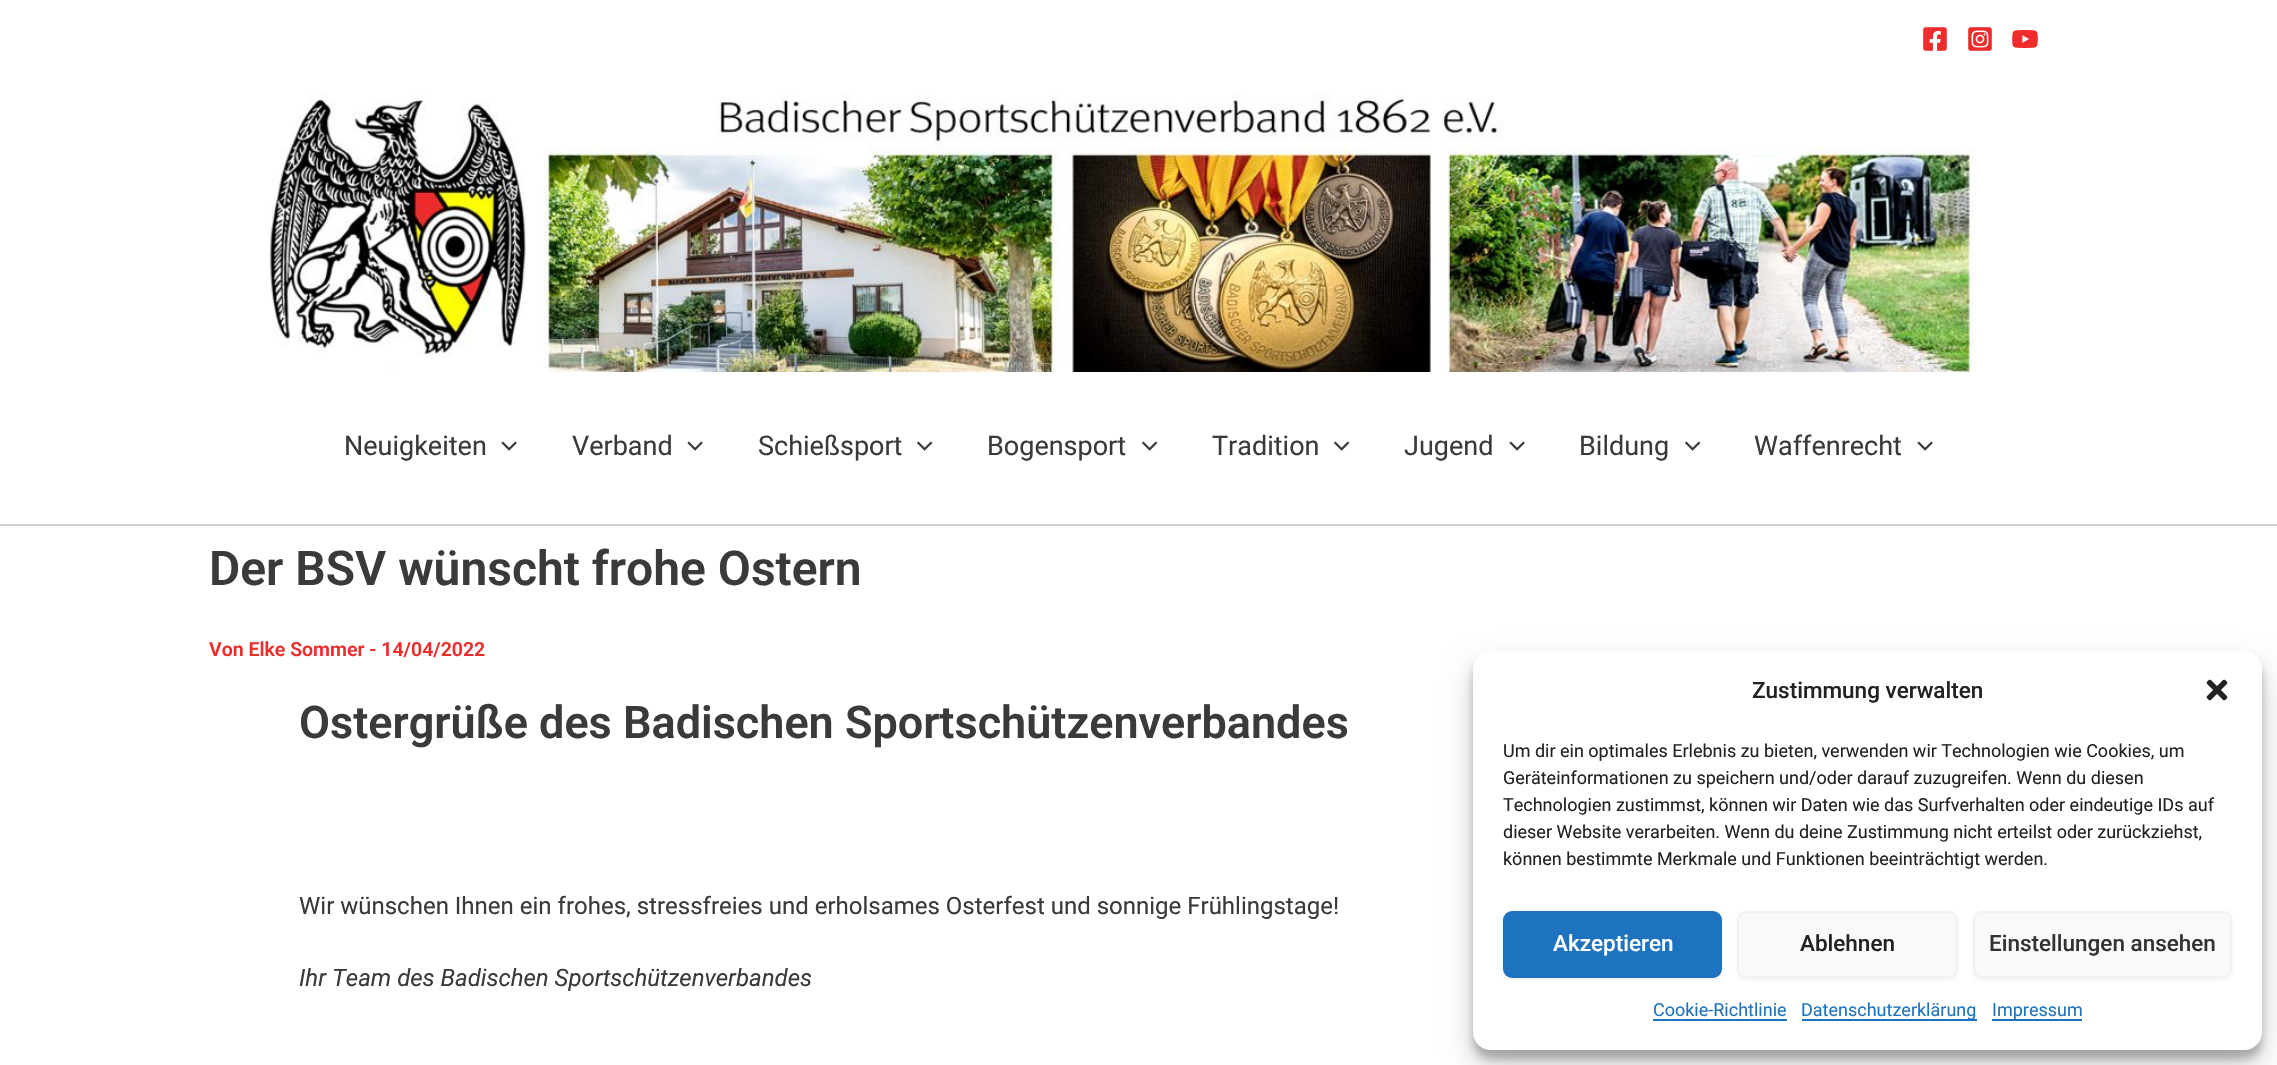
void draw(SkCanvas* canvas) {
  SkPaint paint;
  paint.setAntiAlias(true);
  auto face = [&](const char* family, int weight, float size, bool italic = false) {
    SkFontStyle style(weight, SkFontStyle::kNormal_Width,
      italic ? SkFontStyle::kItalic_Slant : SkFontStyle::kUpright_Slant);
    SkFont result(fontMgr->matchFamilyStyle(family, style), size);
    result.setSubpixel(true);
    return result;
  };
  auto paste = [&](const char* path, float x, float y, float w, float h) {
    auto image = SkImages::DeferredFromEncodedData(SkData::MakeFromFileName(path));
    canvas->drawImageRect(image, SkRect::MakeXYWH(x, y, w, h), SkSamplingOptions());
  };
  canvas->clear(0xffffffff);
  paste("img/1.png", 1923, 27, 24, 24);
  paste("img/2.png", 1968, 27, 24, 24);
  paste("img/3.png", 2012, 30, 26, 18);
  paste("img/4.png", 266, 93, 1710, 279);
  paint.setColor(0xffd0d0d0);
  canvas->drawRect(SkRect::MakeXYWH(0, 524, 2277, 2), paint);
  paste("img/5.png", 501, 441, 16, 10);
  paste("img/5.png", 687, 441, 16, 10);
  paste("img/6.png", 917, 441, 16, 10);
  paste("img/6.png", 1142, 441, 16, 10);
  paste("img/6.png", 1334, 441, 16, 10);
  paste("img/5.png", 1509, 441, 16, 10);
  paste("img/7.png", 1685, 441, 15, 10);
  paste("img/5.png", 1917, 441, 16, 10);
  paint.setColor(0x3b000000);
  paint.setMaskFilter(SkMaskFilter::MakeBlur(kNormal_SkBlurStyle, 4.5f));
  canvas->drawRoundRect(SkRect::MakeXYWH(1473, 660, 789, 399), 18, 18, paint);
  paint.setMaskFilter(nullptr);
  paint.setColor(0x30000000);
  paint.setMaskFilter(SkMaskFilter::MakeBlur(kNormal_SkBlurStyle, 15));
  canvas->drawRoundRect(SkRect::MakeXYWH(1473, 666, 789, 399), 18, 18, paint);
  paint.setMaskFilter(nullptr);
  paint.setColor(0xffffffff);
  canvas->drawRoundRect(SkRect::MakeXYWH(1473, 651, 789, 399), 18, 18, paint);
  paste("img/8.png", 2206, 679, 22, 22);
  paint.setColor(0x0d000000);
  paint.setMaskFilter(SkMaskFilter::MakeBlur(kNormal_SkBlurStyle, 1.5f));
  canvas->drawRoundRect(SkRect::MakeXYWH(1503, 912, 219, 68), 9, 9, paint);
  paint.setMaskFilter(nullptr);
  paint.setColor(0xff1e73be);
  canvas->drawRoundRect(SkRect::MakeXYWH(1504, 912, 217, 65), 8, 8, paint);
  paint.setStroke(true);
  paint.setStrokeWidth(2);
  canvas->drawRoundRect(SkRect::MakeXYWH(1504, 912, 217, 65), 8, 8, paint);
  paint.setStroke(false);
  paint.setColor(0x0d000000);
  paint.setMaskFilter(SkMaskFilter::MakeBlur(kNormal_SkBlurStyle, 1.5f));
  canvas->drawRoundRect(SkRect::MakeXYWH(1737, 912, 221, 68), 9, 9, paint);
  paint.setMaskFilter(nullptr);
  paint.setColor(0xfff9f9f9);
  canvas->drawRoundRect(SkRect::MakeXYWH(1738, 912, 219, 65), 8, 8, paint);
  paint.setStroke(true);
  paint.setColor(0xfff2f2f2);
  canvas->drawRoundRect(SkRect::MakeXYWH(1738, 912, 219, 65), 8, 8, paint);
  paint.setStroke(false);
  paint.setColor(0x0d000000);
  paint.setMaskFilter(SkMaskFilter::MakeBlur(kNormal_SkBlurStyle, 1.5f));
  canvas->drawRoundRect(SkRect::MakeXYWH(1973, 912, 259, 68), 9, 9, paint);
  paint.setMaskFilter(nullptr);
  paint.setColor(0xfff9f9f9);
  canvas->drawRoundRect(SkRect::MakeXYWH(1974, 912, 257, 65), 8, 8, paint);
  paint.setStroke(true);
  paint.setColor(0xfff2f2f2);
  canvas->drawRoundRect(SkRect::MakeXYWH(1974, 912, 257, 65), 8, 8, paint);
  paint.setStroke(false);
  {
    const struct { float x, y, w, h; SkColor color; } items[] = {
      {1653, 1019, 134, 2, 0xff1e73be},
      {1802, 1019, 175, 2, 0xff1e73be},
      {1992, 1019, 90, 2, 0xff1e73be},
    };
    for (auto [x, y, w, h, color] : items) {
      paint.setColor(color);
      canvas->drawRect(SkRect::MakeXYWH(x, y, w, h), paint);
    }
  }
  auto f0 = face("Roboto", 400, 27);
  paint.setColor(0xff3a3a3a);
  {
    const struct { const char* s; float x, y; } items[] = {
      {"Neuigkeiten", 344, 455},
      {"Verband", 572, 455},
      {"Schießsport", 758, 455},
      {"Bogensport", 987, 455},
      {"Tradition", 1212, 455},
      {"Jugend", 1404, 455},
      {"Bildung", 1579, 455},
      {"Waffenrecht", 1754, 455},
    };
    for (auto [s, x, y] : items) {
      canvas->drawString(s, x, y, f0, paint);
    }
  }
  auto f1 = face("Roboto", 600, 48);
  canvas->drawString("Der BSV wünscht frohe Ostern", 209, 585, f1, paint);
  auto f2 = face("Roboto", 600, 19.5f);
  paint.setColor(0xffee2c2c);
  canvas->drawString("Von Elke Sommer - 14/04/2022", 209, 656, f2, paint);
  auto f3 = face("Roboto", 600, 45);
  paint.setColor(0xff3a3a3a);
  canvas->drawString("Ostergrüße des Badischen Sportschützenverbandes", 299, 738, f3, paint);
  auto f4 = face("Roboto", 400, 24);
  canvas->drawString("Wir wünschen Ihnen ein frohes, stressfreies und erholsames Osterfest und sonnige Frühlingstage!", 299, 914, f4, paint);
  auto f5 = face("Roboto", 400, 24, true);
  canvas->drawString("Ihr Team des Badischen Sportschützenverbandes", 299, 986, f5, paint);
  auto f6 = face("Roboto", 500, 22.5f);
  paint.setColor(0xff222222);
  canvas->drawString("Zustimmung verwalten", 1752, 698, f6, paint);
  auto f7 = face("Roboto", 400, 18);
  {
    const struct { const char* s; float x, y; } items[] = {
      {"Um dir ein optimales Erlebnis zu bieten, verwenden wir Technologien wie Cookies, um", 1503, 757},
      {"Geräteinformationen zu speichern und/oder darauf zuzugreifen. Wenn du diesen", 1503, 784},
      {"Technologien zustimmst, können wir Daten wie das Surfverhalten oder eindeutige IDs auf", 1503, 811},
      {"dieser Website verarbeiten. Wenn du deine Zustimmung nicht erteilst oder zurückziehst,", 1503, 838},
      {"können bestimmte Merkmale und Funktionen beeinträchtigt werden.", 1503, 865},
    };
    for (auto [s, x, y] : items) {
      canvas->drawString(s, x, y, f7, paint);
    }
  }
  paint.setColor(0xffffffff);
  canvas->drawString("Akzeptieren", 1553, 951, f6, paint);
  paint.setColor(0xff222222);
  canvas->drawString("Ablehnen", 1800, 951, f6, paint);
  paint.setColor(0xff333333);
  canvas->drawString("Einstellungen ansehen", 1989, 951, f6, paint);
  paint.setColor(0xff1e73be);
  {
    const struct { const char* s; float x, y; } items[] = {
      {"Cookie-Richtlinie", 1653, 1016},
      {"Datenschutzerklärung", 1801, 1016},
      {"Impressum", 1992, 1016},
    };
    for (auto [s, x, y] : items) {
      canvas->drawString(s, x, y, f7, paint);
    }
  }
}
